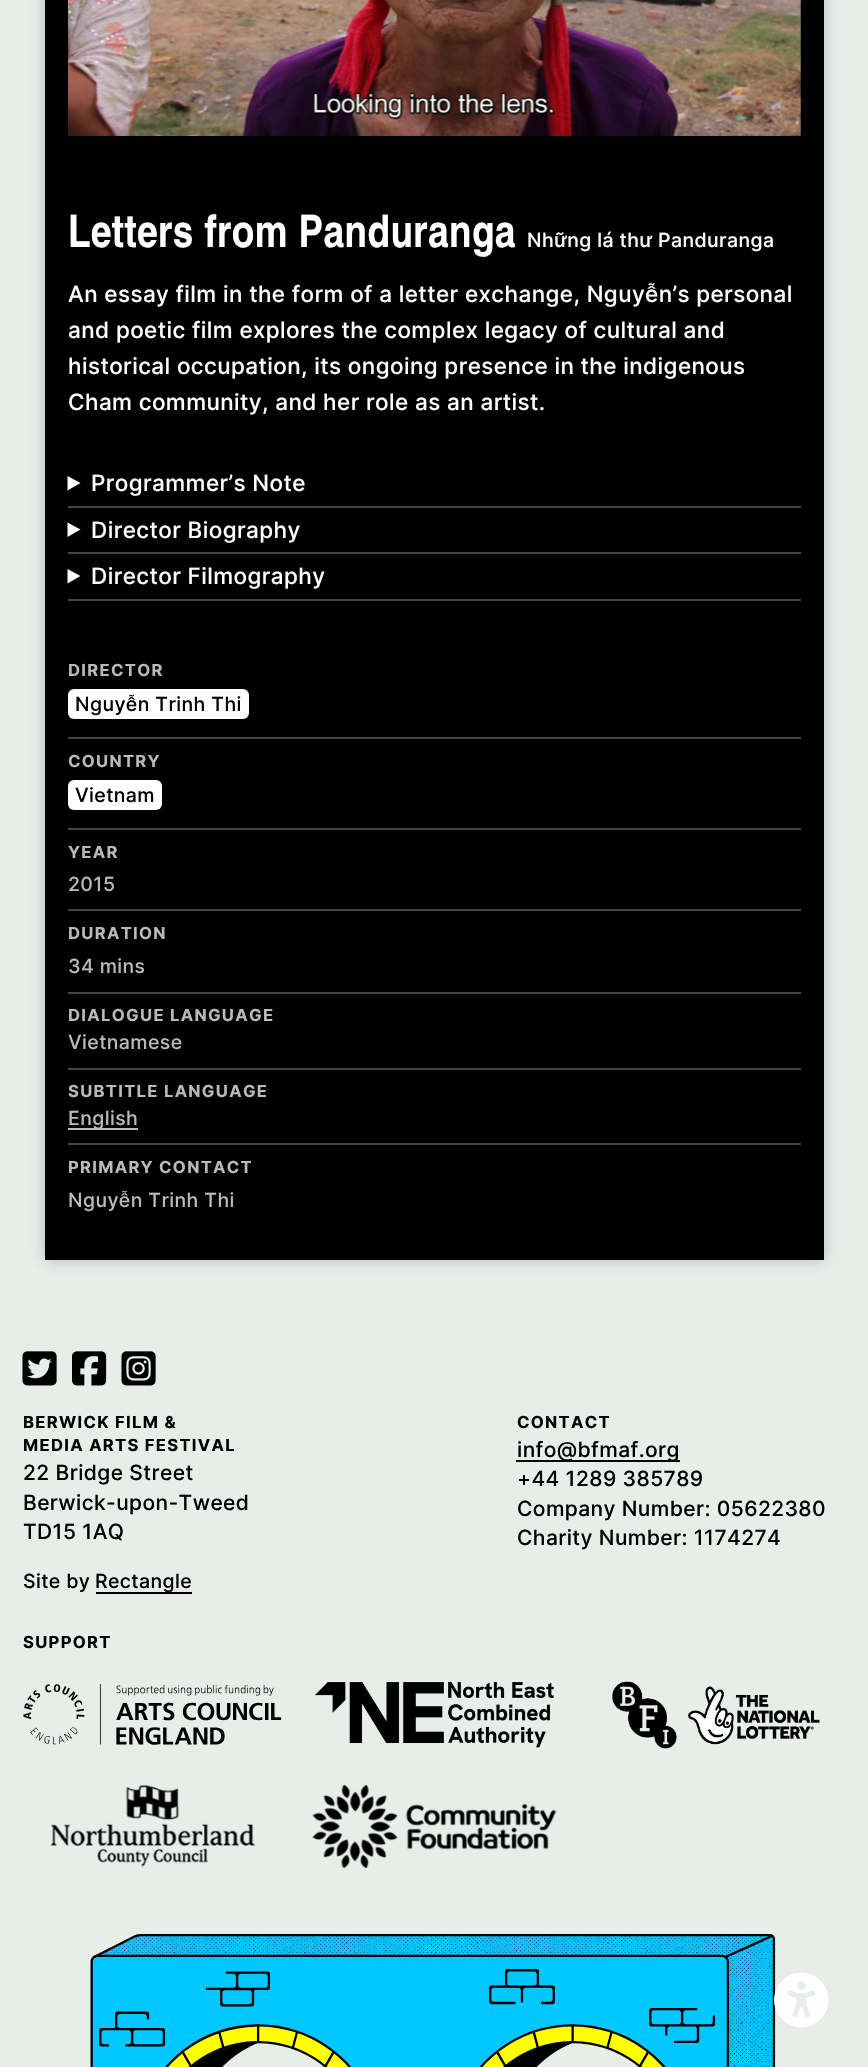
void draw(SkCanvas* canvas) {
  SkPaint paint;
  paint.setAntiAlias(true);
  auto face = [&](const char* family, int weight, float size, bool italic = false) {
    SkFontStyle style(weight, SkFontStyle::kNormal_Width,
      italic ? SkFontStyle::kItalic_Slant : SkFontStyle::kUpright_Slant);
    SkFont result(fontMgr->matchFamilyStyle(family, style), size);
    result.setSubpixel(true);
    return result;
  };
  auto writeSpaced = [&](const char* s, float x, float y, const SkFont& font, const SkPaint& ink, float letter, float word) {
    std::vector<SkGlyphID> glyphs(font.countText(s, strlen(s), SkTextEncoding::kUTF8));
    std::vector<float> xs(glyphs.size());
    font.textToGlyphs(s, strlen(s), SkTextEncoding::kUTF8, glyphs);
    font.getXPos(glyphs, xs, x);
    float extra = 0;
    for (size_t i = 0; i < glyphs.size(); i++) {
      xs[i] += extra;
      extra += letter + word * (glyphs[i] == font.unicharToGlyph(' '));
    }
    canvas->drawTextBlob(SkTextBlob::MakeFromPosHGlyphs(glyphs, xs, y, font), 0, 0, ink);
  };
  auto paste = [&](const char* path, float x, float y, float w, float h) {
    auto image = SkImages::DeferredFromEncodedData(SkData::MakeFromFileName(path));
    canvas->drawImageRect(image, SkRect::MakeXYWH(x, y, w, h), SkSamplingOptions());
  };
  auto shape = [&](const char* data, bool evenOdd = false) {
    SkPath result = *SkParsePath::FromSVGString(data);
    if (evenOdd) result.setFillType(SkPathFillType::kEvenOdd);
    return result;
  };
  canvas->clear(0xffe7ede9);
  paint.setColor(0x400c2949);
  paint.setMaskFilter(SkMaskFilter::MakeBlur(kNormal_SkBlurStyle, 7.5f));
  canvas->drawRect(SkRect::MakeXYWH(45, -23, 779, 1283), paint);
  paint.setMaskFilter(nullptr);
  paint.setColor(0xff000000);
  canvas->drawRect(SkRect::MakeXYWH(45, 0, 779, 1260), paint);
  paste("img/1.png", 68, 0, 733, 136);
  paint.setColor(0xff444444);
  canvas->drawRect(SkRect::MakeXYWH(68, 506, 733, 2), paint);
  paint.setColor(0xffffffff);
  canvas->drawPath(shape("M67.5 476L80.5 483L67.5 490.5Z"), paint);
  paint.setColor(0xff444444);
  canvas->drawRect(SkRect::MakeXYWH(68, 552, 733, 2), paint);
  paint.setColor(0xffffffff);
  canvas->drawPath(shape("M67.5 522.5L80.5 529.5L67.5 537Z"), paint);
  paint.setColor(0xff444444);
  canvas->drawRect(SkRect::MakeXYWH(68, 599, 733, 2), paint);
  paint.setColor(0xffffffff);
  canvas->drawPath(shape("M67.5 569L80.5 576L67.5 583.5Z"), paint);
  paint.setColor(0xff444444);
  canvas->drawRect(SkRect::MakeXYWH(68, 737, 733, 2), paint);
  paint.setColor(0xffffffff);
  canvas->drawRoundRect(SkRect::MakeXYWH(68, 689, 181, 30), 6, 6, paint);
  paint.setColor(0xff444444);
  canvas->drawRect(SkRect::MakeXYWH(68, 828, 733, 2), paint);
  paint.setColor(0xffffffff);
  canvas->drawRoundRect(SkRect::MakeXYWH(68, 780, 94, 30), 6, 6, paint);
  {
    const struct { float x, y, w, h; SkColor color; } items[] = {
      {68, 909, 733, 2, 0xff444444},
      {68, 992, 733, 2, 0xff444444},
      {68, 1068, 733, 2, 0xff444444},
      {68, 1143, 733, 2, 0xff444444},
      {68, 1128, 70, 2, 0xffbababa},
    };
    for (auto [x, y, w, h, color] : items) {
      paint.setColor(color);
      canvas->drawRect(SkRect::MakeXYWH(x, y, w, h), paint);
    }
  }
  paste("img/2.png", 22, 1351, 35, 35);
  paste("img/3.png", 72, 1351, 35, 35);
  paste("img/4.png", 121, 1351, 35, 35);
  paint.setColor(0xff000000);
  canvas->drawRect(SkRect::MakeXYWH(96, 1592, 96, 2), paint);
  canvas->drawRect(SkRect::MakeXYWH(516, 1460, 164, 2), paint);
  paste("img/5.png", 23, 1684, 259, 61);
  paste("img/6.png", 315, 1682, 239, 66);
  paste("img/7.png", 612, 1681, 208, 68);
  paste("img/8.png", 50, 1785, 205, 83);
  paste("img/9.png", 312, 1785, 245, 83);
  paste("img/10.png", 90, 1934, 686, 133);
  paste("img/11.png", 774, 1972, 55, 56);
  auto f0 = face("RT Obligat", 400, 45);
  paint.setColor(0xffffffff);
  writeSpaced("Letters from Panduranga", 68, 247, f0, paint, 0.4f, 0);
  auto f1 = face("Inter", 500, 19.5f);
  writeSpaced("Những lá thư Panduranga", 527, 247, f1, paint, 0.4f, 0);
  auto f2 = face("Inter", 500, 22.5f);
  {
    const struct { const char* s; float x, y; } items[] = {
      {"An essay film in the form of a letter exchange, Nguyễn’s personal", 68, 302},
      {"and poetic film explores the complex legacy of cultural and", 68, 338},
      {"historical occupation, its ongoing presence in the indigenous", 68, 374},
      {"Cham community, and her role as an artist.", 68, 410},
      {"Programmer’s Note", 91, 491},
      {"Director Biography", 91, 538},
      {"Director Filmography", 91, 584},
    };
    for (auto [s, x, y] : items) {
      writeSpaced(s, x, y, f2, paint, 0.4f, 0);
    }
  }
  auto f3 = face("Inter", 700, 16.6f);
  paint.setColor(0xffbababa);
  writeSpaced("DIRECTOR", 68, 676, f3, paint, 1.3f, 0);
  paint.setColor(0xff000000);
  writeSpaced("Nguyễn Trinh Thi", 75, 711, f1, paint, 0.4f, 0);
  paint.setColor(0xffbababa);
  writeSpaced("COUNTRY", 68, 767, f3, paint, 1.3f, 0);
  paint.setColor(0xff000000);
  writeSpaced("Vietnam", 75, 802, f1, paint, 0.4f, 0);
  paint.setColor(0xffbababa);
  writeSpaced("YEAR", 68, 858, f3, paint, 1.3f, 0);
  writeSpaced("2015", 68, 891, f1, paint, 0.4f, 0);
  writeSpaced("DURATION", 68, 939, f3, paint, 1.3f, 0);
  writeSpaced("34 mins", 68, 973, f1, paint, 0.4f, 0);
  writeSpaced("DIALOGUE LANGUAGE", 68, 1021, f3, paint, 1.3f, 0);
  writeSpaced("Vietnamese", 68, 1049, f1, paint, 0.4f, 0);
  writeSpaced("SUBTITLE LANGUAGE", 68, 1097, f3, paint, 1.3f, 0);
  writeSpaced("English", 68, 1125, f1, paint, 0.4f, 0);
  writeSpaced("PRIMARY CONTACT", 68, 1173, f3, paint, 1.3f, 0);
  writeSpaced("Nguyễn Trinh Thi", 68, 1207, f1, paint, 0.4f, 0);
  paint.setColor(0xff000000);
  writeSpaced("BERWICK FILM &", 23, 1428, f3, paint, 1.3f, 0);
  writeSpaced("MEDIA ARTS FESTIVAL", 23, 1451, f3, paint, 1.3f, 0);
  auto f4 = face("Inter", 500, 21);
  {
    const struct { const char* s; float x, y; } items[] = {
      {"22 Bridge Street", 23, 1480},
      {"Berwick-upon-Tweed", 23, 1510},
      {"TD15 1AQ", 23, 1539},
    };
    for (auto [s, x, y] : items) {
      writeSpaced(s, x, y, f4, paint, 0.4f, 0);
    }
  }
  writeSpaced("Site by", 23, 1588, f1, paint, 0.4f, 0);
  writeSpaced("Rectangle", 95, 1588, f1, paint, 0.4f, 0);
  writeSpaced("CONTACT", 517, 1428, f3, paint, 1.3f, 0);
  {
    const struct { const char* s; float x, y; } items[] = {
      {"info@bfmaf.org", 517, 1457},
      {"+44 1289 385789", 517, 1486},
      {"Company Number: 05622380", 517, 1516},
      {"Charity Number: 1174274", 517, 1545},
    };
    for (auto [s, x, y] : items) {
      writeSpaced(s, x, y, f4, paint, 0.4f, 0);
    }
  }
  writeSpaced("SUPPORT", 23, 1648, f3, paint, 1.3f, 0);
}
